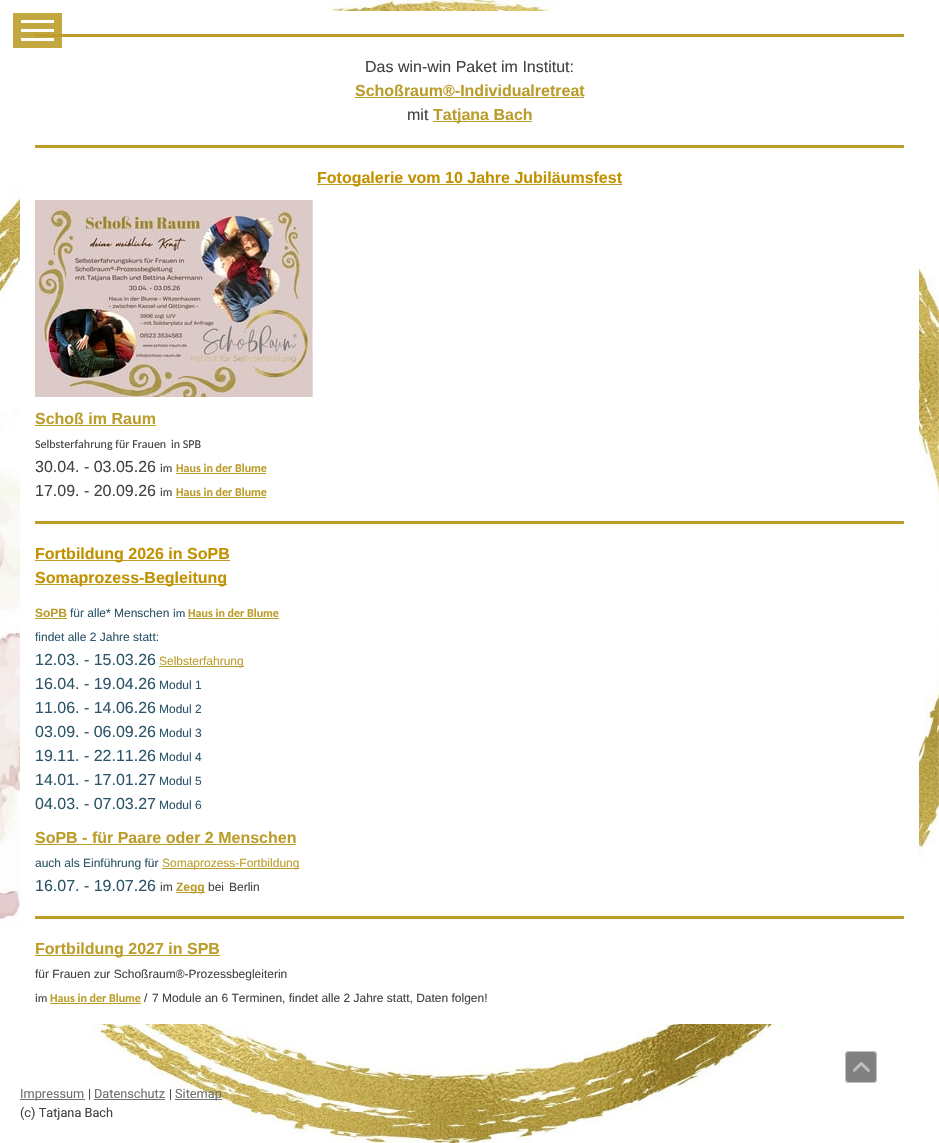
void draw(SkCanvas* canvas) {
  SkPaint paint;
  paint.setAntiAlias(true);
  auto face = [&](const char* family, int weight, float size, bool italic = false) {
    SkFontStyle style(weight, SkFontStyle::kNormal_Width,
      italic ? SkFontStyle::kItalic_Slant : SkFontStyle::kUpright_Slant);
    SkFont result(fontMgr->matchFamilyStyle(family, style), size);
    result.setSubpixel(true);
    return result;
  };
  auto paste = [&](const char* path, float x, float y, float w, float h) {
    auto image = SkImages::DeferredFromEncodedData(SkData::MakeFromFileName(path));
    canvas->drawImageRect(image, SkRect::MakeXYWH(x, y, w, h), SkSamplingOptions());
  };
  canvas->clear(0xffffffff);
  paste("img/1.png", 0, 0, 939, 1143);
  {
    const struct { float x, y, w, h; SkColor color; } items[] = {
      {20, 11, 899, 1013, 0xffffffff},
      {35, 34, 869, 3, 0xffbc9d2b},
      {13, 13, 49, 35, 0xe6bc9d2b},
      {21, 29, 33, 3, 0xffffffff},
      {21, 20, 33, 3, 0xffffffff},
      {21, 38, 33, 3, 0xffffffff},
      {355, 97, 229, 1, 0xffbc9d2b},
      {433, 121, 99, 1, 0xffbc9d2b},
      {35, 145, 869, 3, 0xffbc9d2b},
      {317, 184, 305, 1, 0xffbc9d2b},
    };
    for (auto [x, y, w, h, color] : items) {
      paint.setColor(color);
      canvas->drawRect(SkRect::MakeXYWH(x, y, w, h), paint);
    }
  }
  paste("img/2.png", 35, 200, 278, 197);
  {
    const struct { float x, y, w, h; SkColor color; } items[] = {
      {35, 425, 121, 1, 0xffbc9d2b},
      {176, 473, 90, 1, 0xffbc9d2b},
      {176, 497, 90, 1, 0xffbc9d2b},
      {35, 521, 869, 3, 0xffbc9d2b},
      {35, 560, 195, 1, 0xffbc9d2b},
      {35, 584, 192, 1, 0xffbc9d2b},
      {35, 618, 32, 1, 0xffbc9d2b},
      {188, 618, 91, 1, 0xffbc9d2b},
      {159, 666, 85, 1, 0xffbc9d2b},
      {35, 844, 261, 1, 0xffbc9d2b},
      {162, 868, 137, 1, 0xffbc9d2b},
      {176, 892, 29, 1, 0xffbc9d2b},
      {35, 916, 869, 3, 0xffbc9d2b},
      {35, 955, 185, 1, 0xffbc9d2b},
      {50, 1003, 91, 1, 0xffbc9d2b},
      {20, 1099, 65, 1, 0xff707070},
      {94, 1099, 71, 1, 0xff707070},
      {175, 1099, 47, 1, 0xff707070},
    };
    for (auto [x, y, w, h, color] : items) {
      paint.setColor(color);
      canvas->drawRect(SkRect::MakeXYWH(x, y, w, h), paint);
    }
  }
  paint.setColor(0xff808080);
  canvas->drawRoundRect(SkRect::MakeXYWH(845, 1051, 32, 32), 4, 4, paint);
  paint.setStroke(true);
  paint.setStrokeWidth(1);
  paint.setColor(0x80ffffff);
  canvas->drawRoundRect(SkRect::MakeXYWH(845.5f, 1051.5f, 31, 31), 3.5f, 3.5f, paint);
  paste("img/3.png", 853, 1062, 17, 10);
  auto f0 = face("Liberation Sans", 400, 16);
  paint.setStroke(false);
  paint.setColor(0xff424242);
  canvas->drawString("Das win-win Paket im Institut:", 365, 72, f0, paint);
  auto f1 = face("Liberation Sans", 700, 16);
  paint.setColor(0xffbc9d2b);
  canvas->drawString("Schoßraum®-Individualretreat", 355, 96, f1, paint);
  paint.setColor(0xff424242);
  canvas->drawString("mit", 407, 120, f0, paint);
  paint.setColor(0xffbc9d2b);
  canvas->drawString("Tatjana Bach", 433, 120, f1, paint);
  paint.setColor(0xffc29100);
  canvas->drawString("Fotogalerie vom 10 Jahre Jubiläumsfest", 317, 183, f1, paint);
  paint.setColor(0xffbc9d2b);
  canvas->drawString("Schoß im Raum", 35, 424, f1, paint);
  auto f2 = face("Carlito", 400, 12);
  paint.setColor(0xff424242);
  canvas->drawString("Selbsterfahrung für Frauen", 35, 448, f2, paint);
  canvas->drawString("in SPB", 171, 448, f2, paint);
  canvas->drawString("30.04. - 03.05.26", 35, 472, f0, paint);
  canvas->drawString("im", 160, 472, f2, paint);
  auto f3 = face("Carlito", 700, 12);
  paint.setColor(0xffbc9d2b);
  canvas->drawString("Haus in der Blume", 176, 472, f3, paint);
  paint.setColor(0xff424242);
  canvas->drawString("17.09. - 20.09.26", 35, 496, f0, paint);
  canvas->drawString("im", 160, 496, f2, paint);
  paint.setColor(0xffbc9d2b);
  canvas->drawString("Haus in der Blume", 176, 496, f3, paint);
  paint.setColor(0xffc29100);
  canvas->drawString("Fortbildung 2026 in SoPB", 35, 559, f1, paint);
  canvas->drawString("Somaprozess-Begleitung", 35, 583, f1, paint);
  auto f4 = face("Liberation Sans", 700, 12);
  paint.setColor(0xffbc9d2b);
  canvas->drawString("SoPB", 35, 617, f4, paint);
  auto f5 = face("Liberation Sans", 400, 12);
  paint.setColor(0xff2c5568);
  canvas->drawString("für alle* Menschen", 70, 617, f5, paint);
  canvas->drawString("im", 173, 617, f2, paint);
  paint.setColor(0xffbc9d2b);
  canvas->drawString("Haus in der Blume", 188, 617, f3, paint);
  paint.setColor(0xff2c5568);
  canvas->drawString("findet alle 2 Jahre statt:", 35, 641, f5, paint);
  canvas->drawString("12.03. - 15.03.26", 35, 665, f0, paint);
  paint.setColor(0xffbc9d2b);
  canvas->drawString("Selbsterfahrung", 159, 665, f5, paint);
  paint.setColor(0xff2c5568);
  canvas->drawString("16.04. - 19.04.26", 35, 689, f0, paint);
  canvas->drawString("Modul 1", 159, 689, f5, paint);
  canvas->drawString("11.06. - 14.06.26", 35, 713, f0, paint);
  canvas->drawString("Modul 2", 159, 713, f5, paint);
  canvas->drawString("03.09. - 06.09.26", 35, 737, f0, paint);
  canvas->drawString("Modul 3", 159, 737, f5, paint);
  canvas->drawString("19.11. - 22.11.26", 35, 761, f0, paint);
  canvas->drawString("Modul 4", 159, 761, f5, paint);
  canvas->drawString("14.01. - 17.01.27", 35, 785, f0, paint);
  canvas->drawString("Modul 5", 159, 785, f5, paint);
  canvas->drawString("04.03. - 07.03.27", 35, 809, f0, paint);
  canvas->drawString("Modul 6", 159, 809, f5, paint);
  paint.setColor(0xffbc9d2b);
  canvas->drawString("SoPB - für Paare oder 2 Menschen", 35, 843, f1, paint);
  paint.setColor(0xff2c5568);
  canvas->drawString("auch als Einführung für", 35, 867, f5, paint);
  paint.setColor(0xffbc9d2b);
  canvas->drawString("Somaprozess-Fortbildung", 162, 867, f5, paint);
  paint.setColor(0xff2c5568);
  canvas->drawString("16.07. - 19.07.26", 35, 891, f0, paint);
  paint.setColor(0xff424242);
  canvas->drawString("im", 160, 891, f5, paint);
  paint.setColor(0xffbc9d2b);
  canvas->drawString("Zegg", 176, 891, f4, paint);
  paint.setColor(0xff424242);
  canvas->drawString("bei", 208, 891, f5, paint);
  canvas->drawString("Berlin", 229, 891, f5, paint);
  paint.setColor(0xffbc9d2b);
  canvas->drawString("Fortbildung 2027 in SPB", 35, 954, f1, paint);
  paint.setColor(0xff424242);
  canvas->drawString("für Frauen zur Schoßraum®-Prozessbegleiterin", 35, 978, f5, paint);
  canvas->drawString("im", 35, 1002, f2, paint);
  paint.setColor(0xffbc9d2b);
  canvas->drawString("Haus in der Blume", 50, 1002, f3, paint);
  paint.setColor(0xff424242);
  canvas->drawString("/", 144, 1002, f5, paint);
  canvas->drawString("7 Module an 6 Terminen, findet alle 2 Jahre statt, Daten folgen!", 152, 1002, f5, paint);
  auto f6 = face("Roboto", 400, 12.75f);
  paint.setColor(0xff707070);
  canvas->drawString("Impressum", 20, 1098, f6, paint);
  paint.setColor(0xff424242);
  canvas->drawString("|", 88, 1098, f6, paint);
  paint.setColor(0xff707070);
  canvas->drawString("Datenschutz", 94, 1098, f6, paint);
  paint.setColor(0xff424242);
  canvas->drawString("|", 169, 1098, f6, paint);
  paint.setColor(0xff707070);
  canvas->drawString("Sitemap", 175, 1098, f6, paint);
  paint.setColor(0xff424242);
  canvas->drawString("(c) Tatjana Bach", 20, 1117, f6, paint);
}
